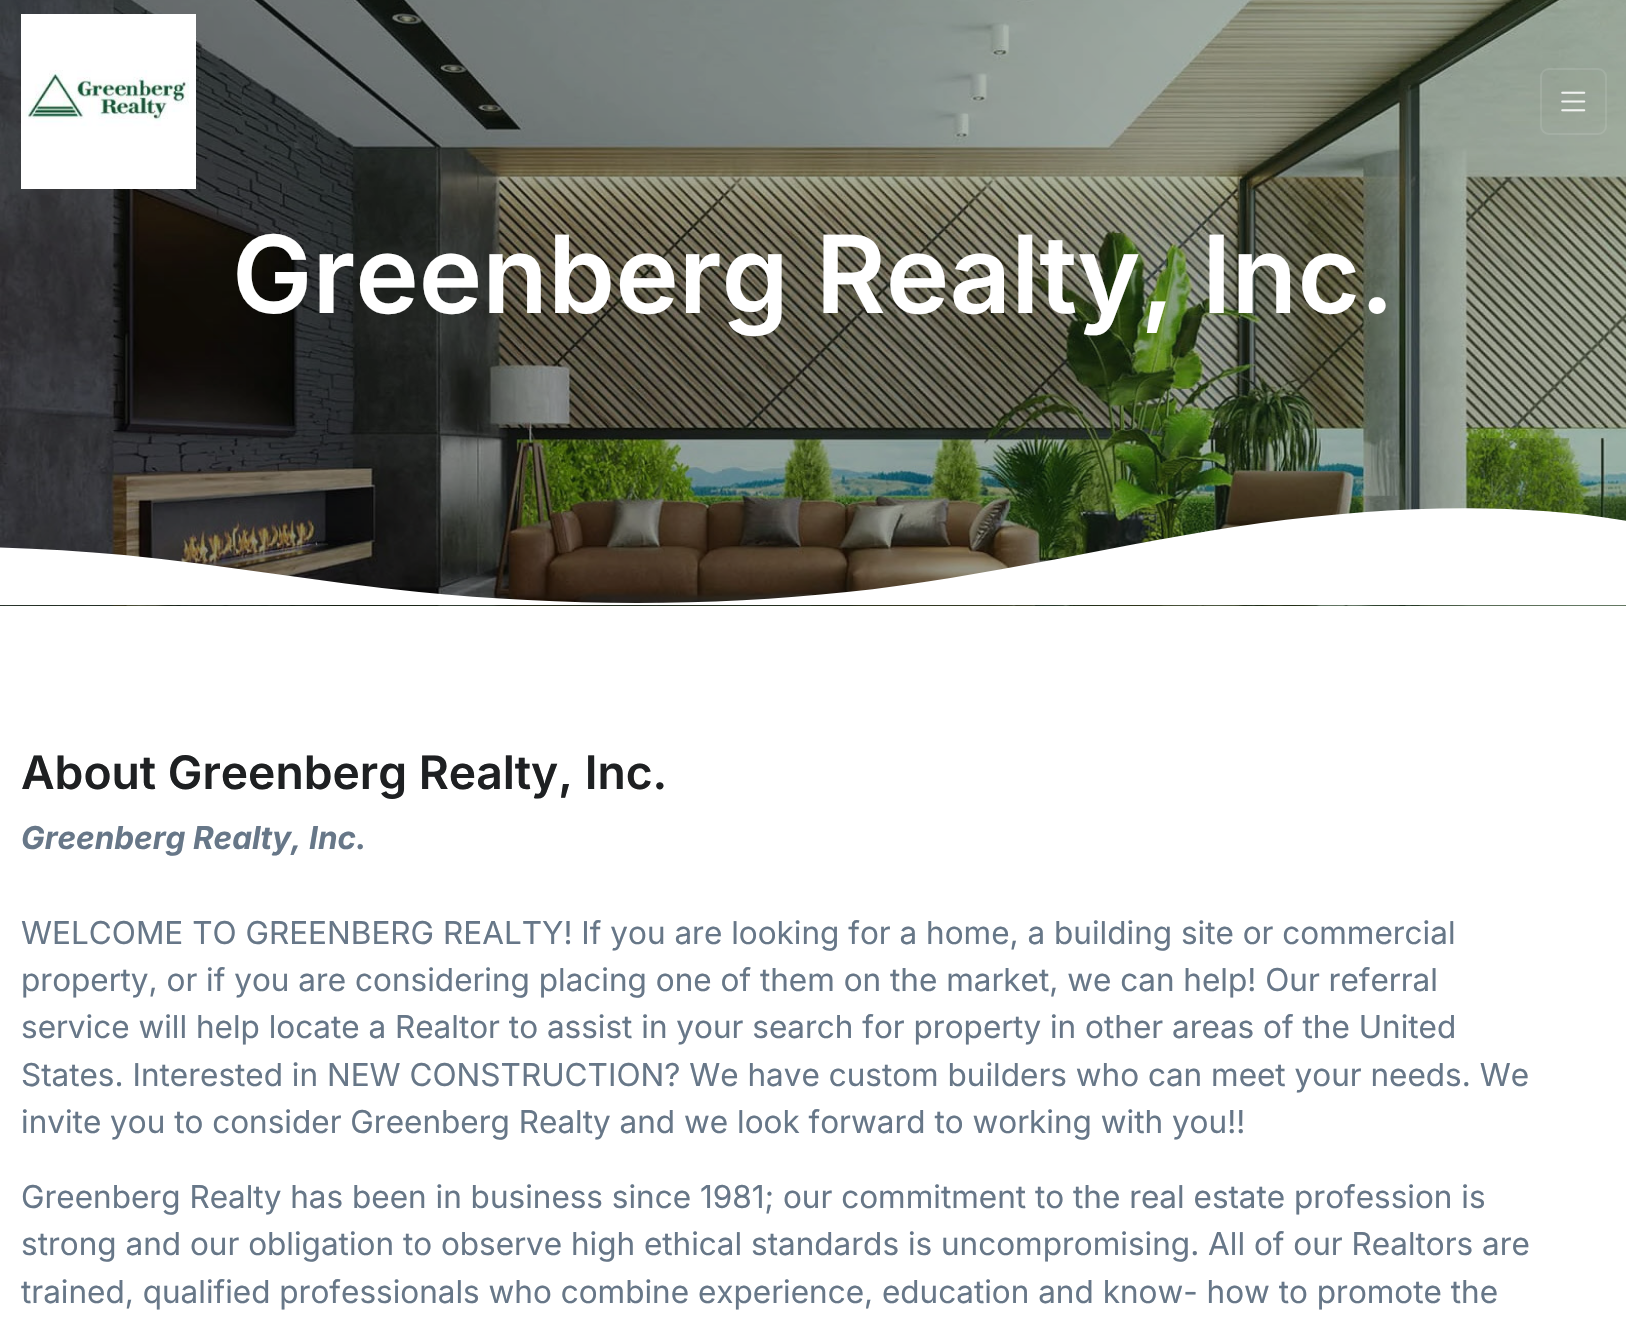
void draw(SkCanvas* canvas) {
  SkPaint paint;
  paint.setAntiAlias(true);
  auto face = [&](const char* family, int weight, float size, bool italic = false) {
    SkFontStyle style(weight, SkFontStyle::kNormal_Width,
      italic ? SkFontStyle::kItalic_Slant : SkFontStyle::kUpright_Slant);
    SkFont result(fontMgr->matchFamilyStyle(family, style), size);
    result.setSubpixel(true);
    return result;
  };
  auto paste = [&](const char* path, float x, float y, float w, float h) {
    auto image = SkImages::DeferredFromEncodedData(SkData::MakeFromFileName(path));
    canvas->drawImageRect(image, SkRect::MakeXYWH(x, y, w, h), SkSamplingOptions());
  };
  auto shape = [&](const char* data, bool evenOdd = false) {
    SkPath result = *SkParsePath::FromSVGString(data);
    if (evenOdd) result.setFillType(SkPathFillType::kEvenOdd);
    return result;
  };
  canvas->clear(0xffffffff);
  paint.setColor(0xff2b522c);
  canvas->drawRect(SkRect::MakeXYWH(0, 605, 1626, 1), paint);
  paste("img/3.png", 0, 0, 1626, 606);
  {
    const SkColor colors[] = {0x66000000, 0x592b522c};
    const float stops[] = {0.15f, 1};
    const SkPoint ends[] = {{256, 861}, {1372, -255}};
    paint.setShader(SkGradientShader::MakeLinear(ends, colors, stops, 2, SkTileMode::kClamp));
    paint.setAlpha(255);
  }
  canvas->drawRect(SkRect::MakeXYWH(0, 0, 1626, 606), paint);
  paste("img/1.png", 21, 14, 175, 175);
  paint.setStroke(true);
  paint.setStrokeWidth(2);
  paint.setShader(nullptr);
  paint.setColor(0x1affffff);
  canvas->drawRoundRect(SkRect::MakeXYWH(1541, 69, 65, 65), 8, 8, paint);
  paste("img/2.png", 1561, 91, 25, 21);
  paint.setStroke(false);
  paint.setColor(0xffffffff);
  canvas->drawPath(shape("M124 555C224 565 320 582 419 592C560 606 706 607 847 592C984 578 1126 542 1261 523C1381 507 1511 501 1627 521V605H-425V581C-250 547-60 538 124 555Z"), paint);
  auto f0 = face("Inter", 600, 107.5f);
  canvas->drawString("Greenberg Realty, Inc.", 232, 313, f0, paint);
  auto f1 = face("Inter", 600, 46.2f);
  paint.setColor(0xff1e2022);
  canvas->drawString("About Greenberg Realty, Inc.", 21, 789, f1, paint);
  auto f2 = face("Inter", 700, 31.5f, true);
  paint.setColor(0xff677788);
  canvas->drawString("Greenberg Realty, Inc.", 21, 849, f2, paint);
  auto f3 = face("Inter", 400, 31.5f);
  {
    const struct { const char* s; float x, y; } items[] = {
      {"WELCOME TO GREENBERG REALTY! If you are looking for a home, a building site or commercial", 21, 944},
      {"property, or if you are considering placing one of them on the market, we can help! Our referral", 21, 991},
      {"service will help locate a Realtor to assist in your search for property in other areas of the United", 21, 1038},
      {"States. Interested in NEW CONSTRUCTION? We have custom builders who can meet your needs. We", 21, 1086},
      {"invite you to consider Greenberg Realty and we look forward to working with you!!", 21, 1133},
      {"Greenberg Realty has been in business since 1981; our commitment to the real estate profession is", 21, 1208},
      {"strong and our obligation to observe high ethical standards is uncompromising. All of our Realtors are", 21, 1255},
      {"trained, qualified professionals who combine experience, education and know- how to promote the", 21, 1303},
    };
    for (auto [s, x, y] : items) {
      canvas->drawString(s, x, y, f3, paint);
    }
  }
}
